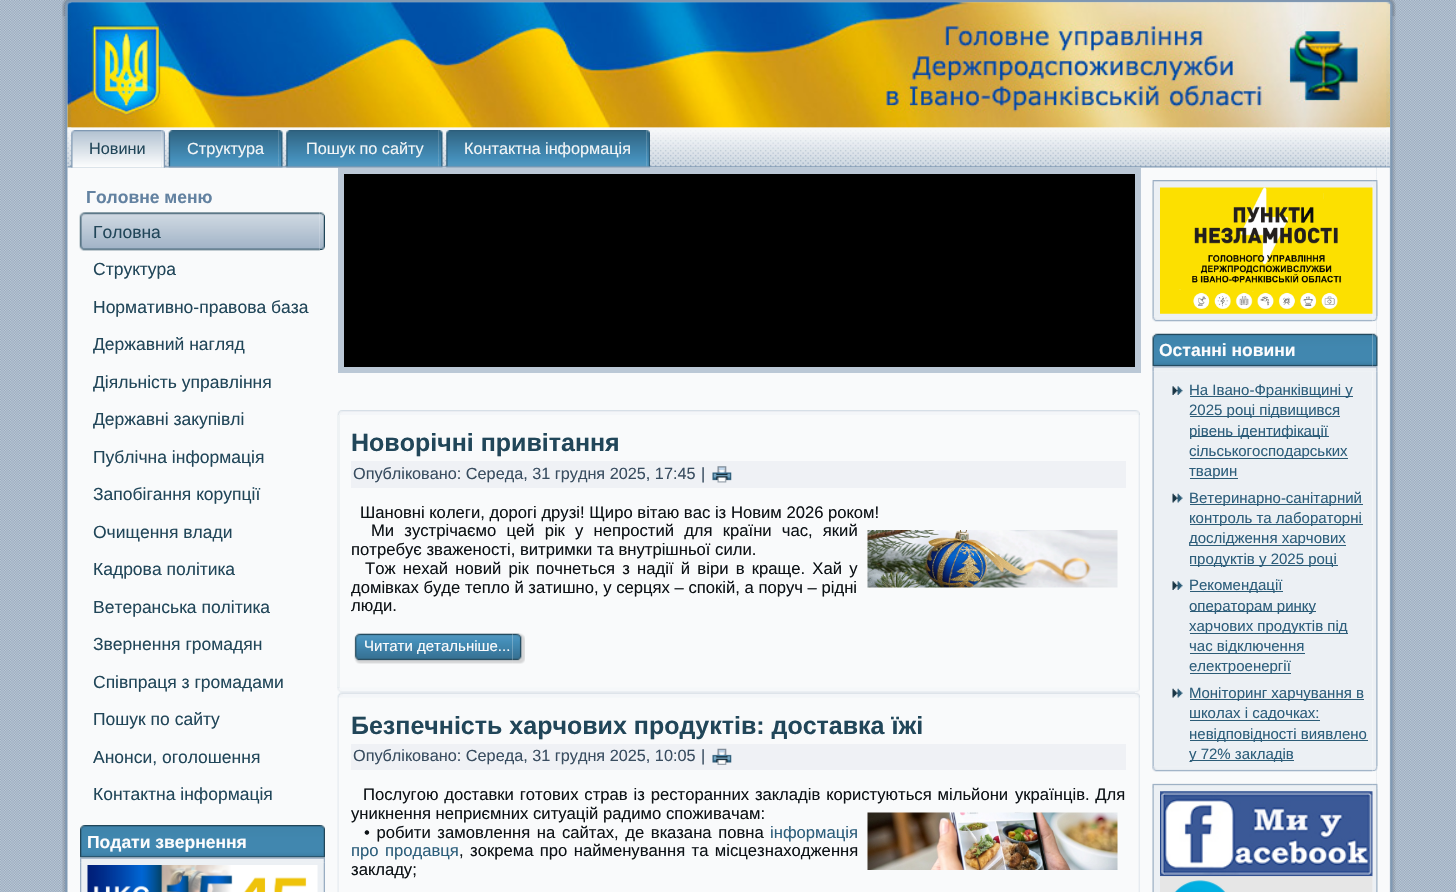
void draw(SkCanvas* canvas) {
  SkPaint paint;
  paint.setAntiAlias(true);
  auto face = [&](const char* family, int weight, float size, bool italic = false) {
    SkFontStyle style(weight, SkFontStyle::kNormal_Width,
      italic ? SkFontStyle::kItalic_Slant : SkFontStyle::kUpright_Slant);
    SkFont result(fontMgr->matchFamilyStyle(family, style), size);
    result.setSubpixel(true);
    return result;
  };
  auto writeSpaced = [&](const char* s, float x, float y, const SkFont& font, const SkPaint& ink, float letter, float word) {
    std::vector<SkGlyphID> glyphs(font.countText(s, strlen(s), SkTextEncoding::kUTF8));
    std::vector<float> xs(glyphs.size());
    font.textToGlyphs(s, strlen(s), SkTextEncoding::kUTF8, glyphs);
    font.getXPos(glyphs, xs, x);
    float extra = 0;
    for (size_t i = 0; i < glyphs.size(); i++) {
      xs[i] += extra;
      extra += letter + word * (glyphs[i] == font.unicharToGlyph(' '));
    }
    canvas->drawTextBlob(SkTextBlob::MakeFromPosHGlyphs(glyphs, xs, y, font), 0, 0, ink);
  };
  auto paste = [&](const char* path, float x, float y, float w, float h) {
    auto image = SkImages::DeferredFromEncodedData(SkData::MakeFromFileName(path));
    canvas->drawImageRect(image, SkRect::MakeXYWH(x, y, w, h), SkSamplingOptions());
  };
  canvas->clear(0xffffffff);
  paste("img/1.png", 0, 0, 1456, 892);
  paste("img/2.png", 261, 0, 935, 1);
  paste("img/3.png", 62, 0, 1315, 17);
  paste("img/4.png", 62, 0, 1315, 17);
  paste("img/9.png", 62, 16, 1315, 876);
  paste("img/10.png", 1376, 16, 20, 876);
  paste("img/5.png", 1376, 0, 20, 17);
  paste("img/6.png", 1376, 0, 20, 17);
  paste("img/7.png", 67, 2, 1323, 126);
  paste("img/8.png", 71, 2, 1316, 126);
  paste("img/11.png", 67, 127, 1320, 41);
  paste("img/12.png", 1386, 127, 4, 41);
  paste("img/13.png", 71, 130, 91, 38);
  paste("img/14.png", 161, 130, 4, 38);
  paste("img/15.png", 168, 130, 111, 38);
  paste("img/16.png", 278, 130, 5, 38);
  paste("img/17.png", 286, 130, 153, 38);
  paste("img/16.png", 438, 130, 5, 38);
  paste("img/18.png", 446, 130, 201, 38);
  paste("img/19.png", 646, 130, 4, 38);
  paste("img/20.png", 79, 212, 242, 39);
  paste("img/21.png", 320, 212, 5, 38);
  paste("img/22.png", 80, 825, 240, 33);
  paste("img/23.png", 320, 825, 5, 33);
  paste("img/24.png", 80, 857, 240, 6);
  paste("img/25.png", 80, 857, 240, 6);
  paste("img/29.png", 320, 862, 5, 30);
  paste("img/26.png", 320, 857, 5, 6);
  paste("img/27.png", 320, 857, 5, 6);
  paste("img/28.png", 80, 862, 240, 30);
  paste("img/30.png", 87, 865, 231, 27);
  paint.setColor(0xff000000);
  canvas->drawRect(SkRect::MakeXYWH(341, 171, 797, 199), paint);
  paint.setStroke(true);
  paint.setStrokeWidth(6);
  paint.setColor(0xffbbc8d6);
  canvas->drawRect(SkRect::MakeXYWH(341, 171, 797, 199), paint);
  paste("img/31.png", 337, 410, 798, 283);
  paste("img/32.png", 337, 410, 798, 5);
  paste("img/39.png", 1138, 415, 2, 273);
  paste("img/33.png", 1135, 410, 5, 283);
  paste("img/34.png", 1135, 410, 5, 5);
  paint.setStroke(false);
  paint.setColor(0x2ebeced9);
  canvas->drawRect(SkRect::MakeXYWH(337, 415, 3, 273), paint);
  paint.setColor(0xffeff1f5);
  canvas->drawRect(SkRect::MakeXYWH(351, 461, 775, 27), paint);
  paste("img/35.png", 712, 466, 20, 17);
  paste("img/36.png", 867, 530, 251, 58);
  paste("img/37.png", 354, 633, 159, 31);
  paste("img/38.png", 512, 633, 13, 31);
  paste("img/40.png", 337, 692, 798, 6);
  paste("img/41.png", 337, 692, 798, 6);
  paste("img/47.png", 1138, 697, 2, 195);
  paste("img/42.png", 1135, 693, 5, 5);
  paste("img/43.png", 1135, 693, 5, 5);
  paste("img/44.png", 337, 697, 2, 195);
  canvas->drawRect(SkRect::MakeXYWH(351, 744, 775, 26), paint);
  paste("img/45.png", 712, 748, 20, 17);
  paste("img/46.png", 867, 812, 251, 58);
  paste("img/48.png", 1152, 180, 221, 142);
  paste("img/49.png", 1152, 180, 221, 5);
  paste("img/52.png", 1152, 185, 221, 132);
  paste("img/53.png", 1373, 185, 5, 132);
  paste("img/50.png", 1372, 180, 6, 142);
  paste("img/51.png", 1372, 180, 6, 5);
  paste("img/54.png", 1160, 187, 213, 127);
  paste("img/55.png", 1152, 333, 221, 34);
  paste("img/56.png", 1372, 333, 6, 34);
  paste("img/57.png", 1152, 366, 221, 406);
  paste("img/58.png", 1152, 366, 221, 6);
  paste("img/61.png", 1152, 371, 221, 396);
  paste("img/62.png", 1373, 371, 5, 396);
  paste("img/59.png", 1372, 366, 6, 406);
  paste("img/60.png", 1372, 366, 6, 5);
  paste("img/63.png", 1172, 386, 11, 9);
  {
    const struct { float x, y, w, h; SkColor color; } items[] = {
      {1190, 396, 163, 1, 0xff2c5c77},
      {1190, 416, 150, 1, 0xff2c5c77},
      {1190, 436, 139, 1, 0xff2c5c77},
      {1190, 458, 158, 1, 0xff2c5c77},
      {1190, 478, 48, 1, 0xff2c5c77},
    };
    for (auto [x, y, w, h, color] : items) {
      paint.setColor(color);
      canvas->drawRect(SkRect::MakeXYWH(x, y, w, h), paint);
    }
  }
  paste("img/64.png", 1172, 493, 11, 10);
  {
    const struct { float x, y, w, h; SkColor color; } items[] = {
      {1190, 504, 173, 1, 0xff2c5c77},
      {1190, 524, 173, 1, 0xff2c5c77},
      {1190, 545, 156, 1, 0xff2c5c77},
      {1190, 565, 148, 1, 0xff2c5c77},
    };
    for (auto [x, y, w, h, color] : items) {
      paint.setColor(color);
      canvas->drawRect(SkRect::MakeXYWH(x, y, w, h), paint);
    }
  }
  paste("img/63.png", 1172, 581, 11, 9);
  {
    const struct { float x, y, w, h; SkColor color; } items[] = {
      {1190, 591, 93, 1, 0xff2c5c77},
      {1190, 611, 126, 1, 0xff2c5c77},
      {1190, 633, 158, 1, 0xff2c5c77},
      {1190, 653, 115, 1, 0xff2c5c77},
      {1190, 673, 101, 1, 0xff2c5c77},
    };
    for (auto [x, y, w, h, color] : items) {
      paint.setColor(color);
      canvas->drawRect(SkRect::MakeXYWH(x, y, w, h), paint);
    }
  }
  paste("img/64.png", 1172, 688, 11, 10);
  {
    const struct { float x, y, w, h; SkColor color; } items[] = {
      {1190, 699, 174, 1, 0xff2c5c77},
      {1190, 720, 130, 1, 0xff2c5c77},
      {1190, 740, 178, 1, 0xff2c5c77},
      {1190, 760, 104, 1, 0xff2c5c77},
    };
    for (auto [x, y, w, h, color] : items) {
      paint.setColor(color);
      canvas->drawRect(SkRect::MakeXYWH(x, y, w, h), paint);
    }
  }
  paste("img/65.png", 1152, 783, 221, 6);
  paste("img/66.png", 1152, 783, 221, 6);
  paste("img/69.png", 1152, 788, 221, 104);
  paste("img/70.png", 1373, 788, 5, 104);
  paste("img/67.png", 1372, 783, 6, 6);
  paste("img/68.png", 1372, 783, 6, 6);
  paste("img/71.png", 1160, 791, 213, 86);
  paste("img/72.png", 1160, 876, 213, 16);
  auto f0 = face("Liberation Sans", 400, 16.25f);
  paint.setColor(0xff214659);
  canvas->drawString("Новини", 89, 154, f0, paint);
  paint.setColor(0xfff2f5f7);
  {
    const struct { const char* s; float x, y; } items[] = {
      {"Структура", 187, 154},
      {"Пошук по сайту", 306, 154},
      {"Контактна інформація", 464, 154},
    };
    for (auto [s, x, y] : items) {
      canvas->drawString(s, x, y, f0, paint);
    }
  }
  auto f1 = face("Liberation Sans", 700, 17.5f);
  paint.setColor(0xff6382a1);
  canvas->drawString("Головне меню", 86, 203, f1, paint);
  auto f2 = face("Liberation Sans", 400, 17.5f);
  paint.setColor(0xff214659);
  {
    const struct { const char* s; float x, y; } items[] = {
      {"Головна", 93, 238},
      {"Структура", 93, 275},
      {"Нормативно-правова база", 93, 313},
      {"Державний нагляд", 93, 350},
      {"Діяльність управління", 93, 388},
      {"Державні закупівлі", 93, 425},
      {"Публічна інформація", 93, 463},
      {"Запобігання корупції", 93, 500},
      {"Очищення влади", 93, 538},
      {"Кадрова політика", 93, 575},
      {"Ветеранська політика", 93, 613},
      {"Звернення громадян", 93, 650},
      {"Співпраця з громадами", 93, 688},
      {"Пошук по сайту", 93, 725},
      {"Анонси, оголошення", 93, 763},
      {"Контактна інформація", 93, 800},
    };
    for (auto [s, x, y] : items) {
      canvas->drawString(s, x, y, f2, paint);
    }
  }
  paint.setColor(0xfffcfcfd);
  canvas->drawString("Подати звернення", 87, 848, f1, paint);
  auto f3 = face("Liberation Sans", 700, 25);
  paint.setColor(0xff214659);
  canvas->drawString("Новорічні привітання", 351, 451, f3, paint);
  paint.setColor(0xff394d60);
  canvas->drawString("Опубліковано: Середа, 31 грудня 2025, 17:45", 353, 479, f0, paint);
  canvas->drawString("|", 701, 479, f0, paint);
  auto f4 = face("Liberation Sans", 400, 16.65f);
  paint.setColor(0xff0d1216);
  canvas->drawString("Шановні колеги, дорогі друзі! Щиро вітаю вас із Новим 2026 роком!", 360, 518, f4, paint);
  writeSpaced("Ми зустрічаємо цей рік у непростий для країни час, який", 371, 536, f4, paint, 0, 5.5f);
  canvas->drawString("потребує зваженості, витримки та внутрішньої сили.", 351, 555, f4, paint);
  writeSpaced("Тож нехай новий рік почнеться з надії й віри в краще. Хай у", 365, 574, f4, paint, 0, 2.6f);
  canvas->drawString("домівках буде тепло й затишно, у серцях – спокій, а поруч – рідні", 351, 593, f4, paint);
  canvas->drawString("люди.", 351, 611, f4, paint);
  auto f5 = face("Liberation Sans", 400, 15);
  paint.setColor(0xfffcfcfd);
  canvas->drawString("Читати детальніше...", 364, 651, f5, paint);
  paint.setColor(0xff214659);
  canvas->drawString("Безпечність харчових продуктів: доставка їжі", 351, 734, f3, paint);
  paint.setColor(0xff394d60);
  canvas->drawString("Опубліковано: Середа, 31 грудня 2025, 10:05", 353, 761, f0, paint);
  canvas->drawString("|", 701, 761, f0, paint);
  paint.setColor(0xff0d1216);
  writeSpaced("Послугою доставки готових страв із ресторанних закладів користуються мільйони", 363, 800, f4, paint, 0, 1.25f);
  writeSpaced("українців. Для", 1015, 800, f4, paint, 0, 1);
  canvas->drawString("уникнення неприємних ситуацій радимо споживачам:", 351, 819, f4, paint);
  writeSpaced("• робити замовлення на сайтах, де вказана повна", 364, 838, f4, paint, 0, 2);
  paint.setColor(0xff2d5e7b);
  canvas->drawString("інформація", 770, 838, f4, paint);
  writeSpaced("про продавця", 351, 856, f4, paint, 0, 1.75f);
  paint.setColor(0xff0d1216);
  writeSpaced(", зокрема про найменування та місцезнаходження", 459, 856, f4, paint, 0, 1.75f);
  canvas->drawString("закладу;", 351, 875, f4, paint);
  paint.setColor(0xfffcfcfd);
  canvas->drawString("Останні новини", 1159, 356, f1, paint);
  paint.setColor(0xff2d5e7b);
  {
    const struct { const char* s; float x, y; } items[] = {
      {"На Івано-Франківщині у", 1189, 395},
      {"2025 році підвищився", 1189, 415},
      {"рівень ідентифікації", 1189, 436},
      {"сільськогосподарських", 1189, 456},
      {"тварин", 1189, 476},
      {"Ветеринарно-санітарний", 1189, 503},
      {"контроль та лабораторні", 1189, 523},
      {"дослідження харчових", 1189, 543},
      {"продуктів у 2025 році", 1189, 564},
      {"Рекомендації", 1189, 590},
      {"операторам ринку", 1189, 611},
      {"харчових продуктів під", 1189, 631},
      {"час відключення", 1189, 651},
      {"електроенергії", 1189, 671},
      {"Моніторинг харчування в", 1189, 698},
      {"школах і садочках:", 1189, 718},
      {"невідповідності виявлено", 1189, 739},
      {"у 72% закладів", 1189, 759},
    };
    for (auto [s, x, y] : items) {
      canvas->drawString(s, x, y, f5, paint);
    }
  }
}
